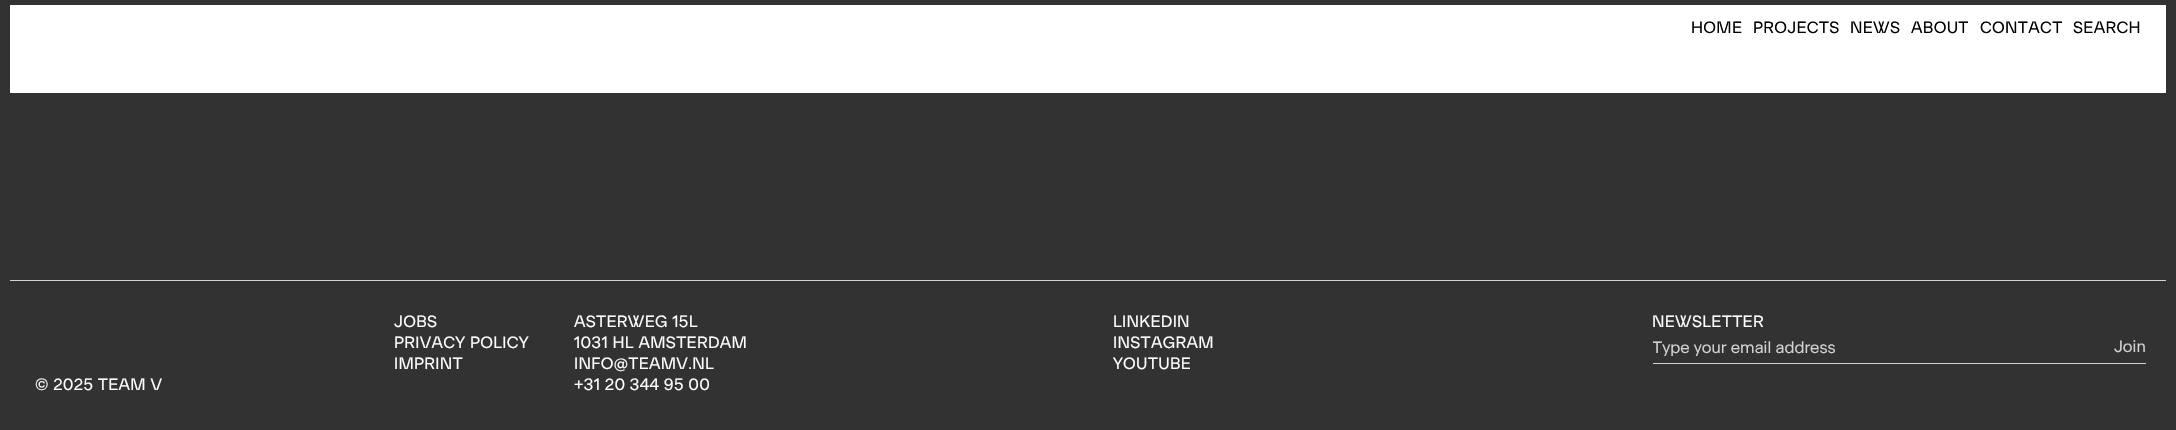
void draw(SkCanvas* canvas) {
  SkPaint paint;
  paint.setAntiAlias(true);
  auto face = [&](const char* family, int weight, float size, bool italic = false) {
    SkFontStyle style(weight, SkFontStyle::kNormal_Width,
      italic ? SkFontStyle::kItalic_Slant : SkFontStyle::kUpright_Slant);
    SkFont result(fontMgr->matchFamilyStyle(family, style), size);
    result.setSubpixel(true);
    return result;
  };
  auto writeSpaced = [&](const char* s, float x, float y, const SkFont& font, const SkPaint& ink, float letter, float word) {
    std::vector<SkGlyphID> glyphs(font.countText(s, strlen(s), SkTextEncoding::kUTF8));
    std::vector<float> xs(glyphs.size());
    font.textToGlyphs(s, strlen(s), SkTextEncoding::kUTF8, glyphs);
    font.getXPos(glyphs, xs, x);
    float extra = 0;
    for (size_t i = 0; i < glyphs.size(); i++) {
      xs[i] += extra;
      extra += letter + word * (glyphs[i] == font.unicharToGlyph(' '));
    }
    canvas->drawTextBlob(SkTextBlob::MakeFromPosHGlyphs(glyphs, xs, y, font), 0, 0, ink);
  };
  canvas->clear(0xff323232);
  {
    const struct { float x, y, w, h; SkColor color; } items[] = {
      {10, 5, 2156, 88, 0xffffffff},
      {10, 280, 2156, 1, 0xffd2d2d2},
      {1653, 363, 493, 1, 0xffd2d2d2},
    };
    for (auto [x, y, w, h, color] : items) {
      paint.setColor(color);
      canvas->drawRect(SkRect::MakeXYWH(x, y, w, h), paint);
    }
  }
  auto f0 = face("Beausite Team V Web", 400, 16.25f);
  paint.setColor(0xff000000);
  {
    const struct { const char* s; float x, y; } items[] = {
      {"HOME", 1691, 33},
      {"PROJECTS", 1753, 33},
      {"NEWS", 1850, 33},
      {"ABOUT", 1911, 33},
      {"CONTACT", 1980, 33},
      {"SEARCH", 2073, 33},
    };
    for (auto [s, x, y] : items) {
      writeSpaced(s, x, y, f0, paint, 0.3f, 0);
    }
  }
  paint.setColor(0xffffffff);
  {
    const struct { const char* s; float x, y; } items[] = {
      {"JOBS", 394, 327},
      {"PRIVACY POLICY", 394, 348},
      {"IMPRINT", 394, 369},
      {"ASTERWEG 15L", 574, 327},
      {"1031 HL AMSTERDAM", 574, 348},
      {"INFO@TEAMV.NL", 574, 369},
      {"+31 20 344 95 00", 574, 390},
      {"LINKEDIN", 1113, 327},
      {"INSTAGRAM", 1113, 348},
      {"YOUTUBE", 1113, 369},
      {"NEWSLETTER", 1652, 327},
    };
    for (auto [s, x, y] : items) {
      writeSpaced(s, x, y, f0, paint, 0.3f, 0);
    }
  }
  canvas->save();
  canvas->clipRect(SkRect::MakeXYWH(1653, 338, 462, 18));
  paint.setColor(0xffd2d2d2);
  canvas->drawString("Type your email address", 1652, 353, f0, paint);
  canvas->restore();
  canvas->drawString("Join", 2114, 352, f0, paint);
  paint.setColor(0xffffffff);
  writeSpaced("© 2025 TEAM V", 35, 390, f0, paint, 0.3f, 0);
}
